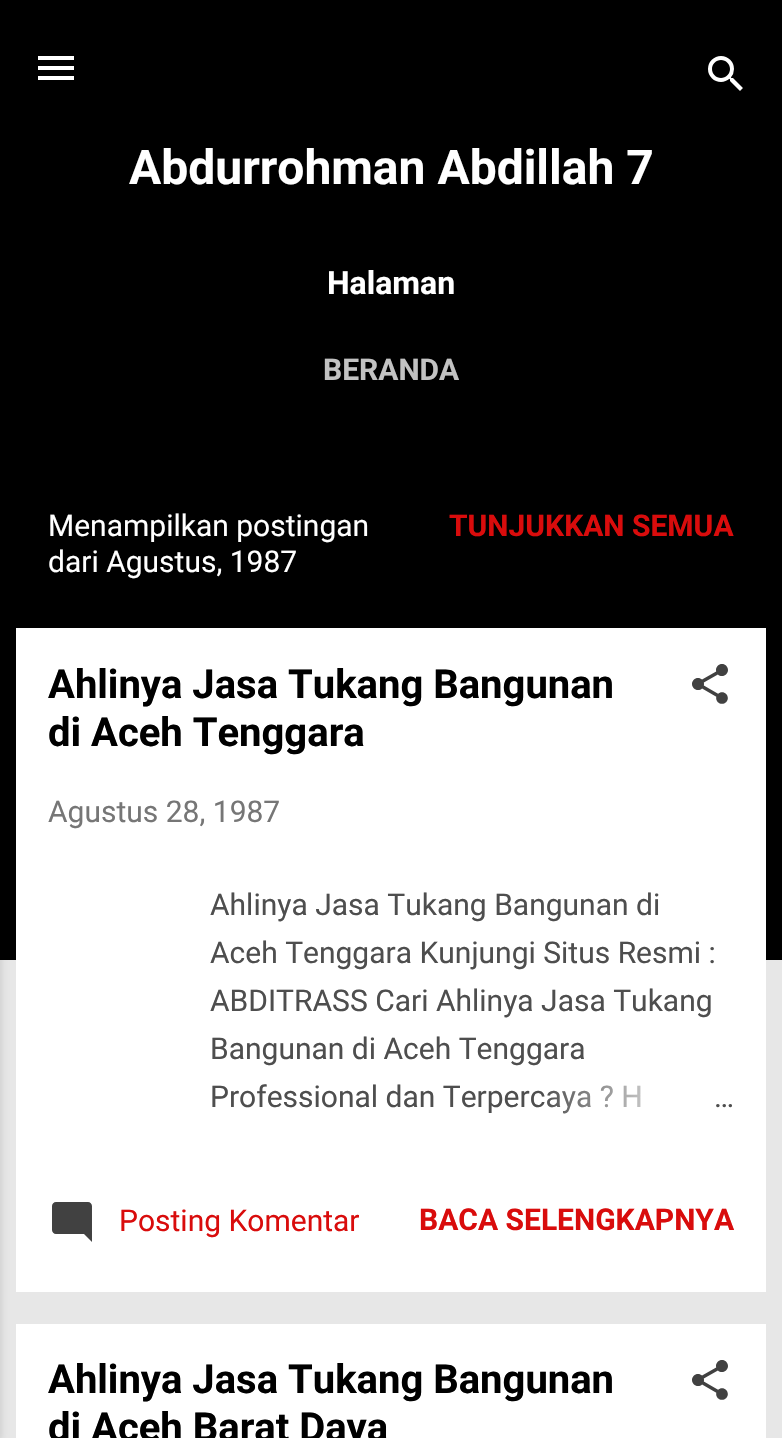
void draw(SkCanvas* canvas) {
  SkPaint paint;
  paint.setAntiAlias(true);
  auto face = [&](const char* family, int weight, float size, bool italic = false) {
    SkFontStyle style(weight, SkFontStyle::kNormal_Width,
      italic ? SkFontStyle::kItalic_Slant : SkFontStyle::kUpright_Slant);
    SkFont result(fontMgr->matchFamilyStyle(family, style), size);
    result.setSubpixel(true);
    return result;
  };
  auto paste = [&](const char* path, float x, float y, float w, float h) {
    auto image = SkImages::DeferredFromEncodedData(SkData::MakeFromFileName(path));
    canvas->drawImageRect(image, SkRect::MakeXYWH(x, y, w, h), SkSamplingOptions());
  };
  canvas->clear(0xffe7e7e7);
  paint.setColor(0xff000000);
  canvas->drawRect(SkRect::MakeXYWH(0, 0, 782, 960), paint);
  paint.setColor(0x1a000000);
  paint.setMaskFilter(SkMaskFilter::MakeBlur(kNormal_SkBlurStyle, 3));
  canvas->drawRect(SkRect::MakeXYWH(-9, 2, 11, 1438), paint);
  paint.setMaskFilter(nullptr);
  paste("img/1.png", 38, 56, 36, 24);
  paste("img/2.png", 708, 56, 35, 35);
  paint.setColor(0xffffffff);
  canvas->drawRect(SkRect::MakeXYWH(16, 628, 750, 664), paint);
  paste("img/3.png", 692, 664, 36, 40);
  paste("img/4.png", 52, 1202, 40, 40);
  canvas->drawRect(SkRect::MakeXYWH(16, 1324, 750, 114), paint);
  paste("img/3.png", 692, 1360, 36, 40);
  auto f0 = face("Roboto", 700, 48);
  canvas->drawString("Abdurrohman Abdillah 7", 129, 184, f0, paint);
  auto f1 = face("Roboto", 700, 32);
  canvas->drawString("Halaman", 327, 294, f1, paint);
  auto f2 = face("Roboto", 700, 30);
  paint.setColor(0xffc2c2c2);
  canvas->drawString("BERANDA", 323, 380, f2, paint);
  auto f3 = face("Roboto", 400, 30);
  paint.setColor(0xffffffff);
  canvas->drawString("Menampilkan postingan", 48, 536, f3, paint);
  canvas->drawString("dari Agustus, 1987", 48, 572, f3, paint);
  paint.setColor(0xffd90c0c);
  canvas->drawString("TUNJUKKAN SEMUA", 449, 536, f2, paint);
  auto f4 = face("Roboto", 700, 40);
  paint.setColor(0xff000000);
  canvas->drawString("Ahlinya Jasa Tukang Bangunan", 48, 698, f4, paint);
  canvas->drawString("di Aceh Tenggara", 48, 746, f4, paint);
  paint.setColor(0xff767676);
  canvas->drawString("Agustus 28, 1987", 48, 822, f3, paint);
  paint.setColor(0xff4e4e4e);
  {
    const struct { const char* s; float x, y; } items[] = {
      {"Ahlinya Jasa Tukang Bangunan di", 210, 915},
      {"Aceh Tenggara Kunjungi Situs Resmi :", 210, 963},
      {"ABDITRASS Cari Ahlinya Jasa Tukang", 210, 1011},
      {"Bangunan di Aceh Tenggara", 210, 1059},
      {"Professional dan Terpercaya ? H", 210, 1107},
    };
    for (auto [s, x, y] : items) {
      canvas->drawString(s, x, y, f3, paint);
    }
  }
  {
    const SkColor colors[] = {0xffffffff, 0xffffffff, 0x00ffffff};
    const float stops[] = {0, 0.2f, 1};
    const SkPoint ends[] = {{734, 1098}, {542, 1098}};
    paint.setShader(SkGradientShader::MakeLinear(ends, colors, stops, 3, SkTileMode::kClamp));
    paint.setAlpha(255);
  }
  canvas->drawRect(SkRect::MakeXYWH(547, 1085, 93, 29), paint);
  paint.setShader(nullptr);
  paint.setColor(0xff4e4e4e);
  canvas->drawString("…", 714, 1107, f3, paint);
  paint.setColor(0xffd90c0c);
  canvas->drawString("Posting Komentar", 119, 1231, f3, paint);
  canvas->drawString("BACA SELENGKAPNYA", 419, 1230, f2, paint);
  paint.setColor(0xff000000);
  canvas->drawString("Ahlinya Jasa Tukang Bangunan", 48, 1393, f4, paint);
  canvas->drawString("di Aceh Barat Daya", 48, 1441, f4, paint);
}
